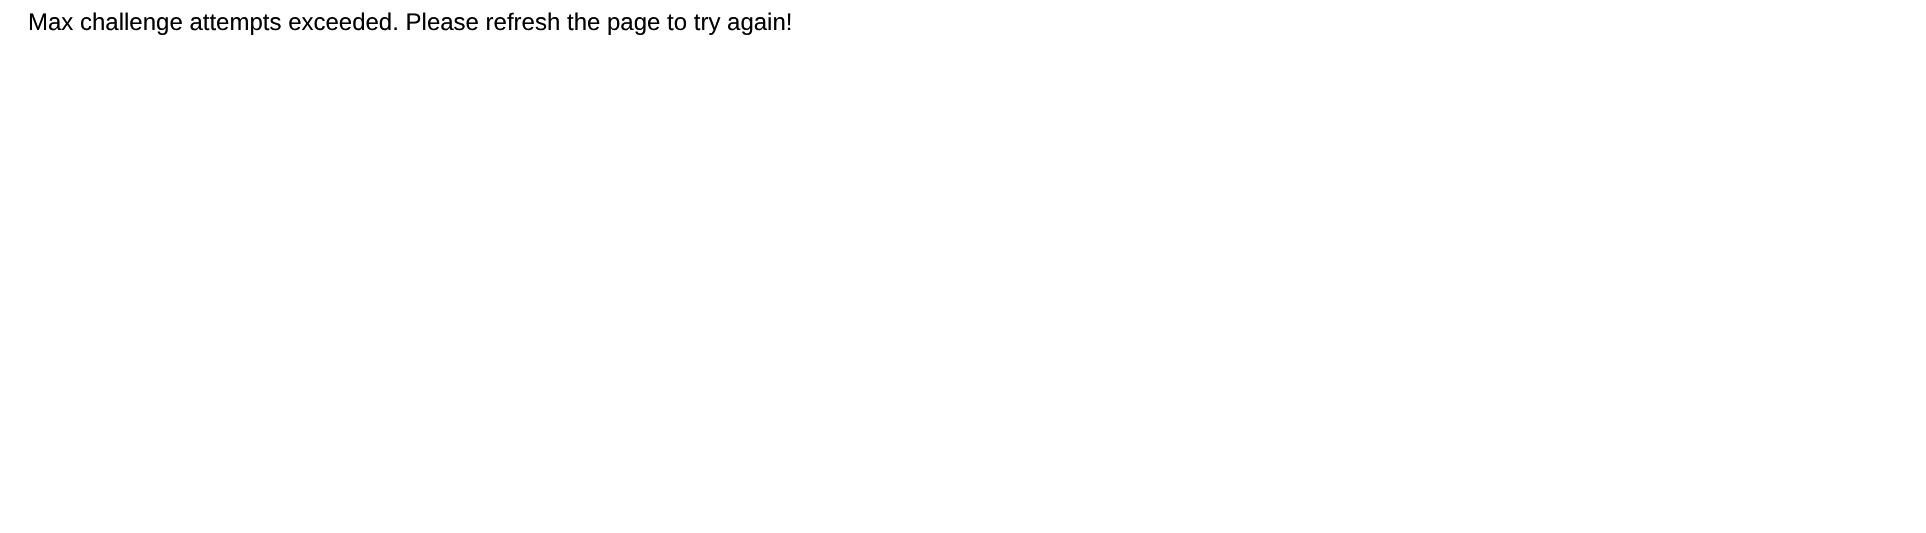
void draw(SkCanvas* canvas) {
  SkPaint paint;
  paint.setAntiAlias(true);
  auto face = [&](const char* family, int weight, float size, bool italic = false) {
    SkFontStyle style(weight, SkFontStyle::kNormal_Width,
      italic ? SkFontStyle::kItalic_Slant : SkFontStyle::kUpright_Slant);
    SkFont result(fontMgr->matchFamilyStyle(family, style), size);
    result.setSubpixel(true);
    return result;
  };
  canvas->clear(0xffffffff);
  auto f0 = face("Liberation Sans", 400, 24);
  paint.setColor(0xff000000);
  canvas->drawString("Max challenge attempts exceeded. Please refresh the page to try again!", 28, 30, f0, paint);
}
